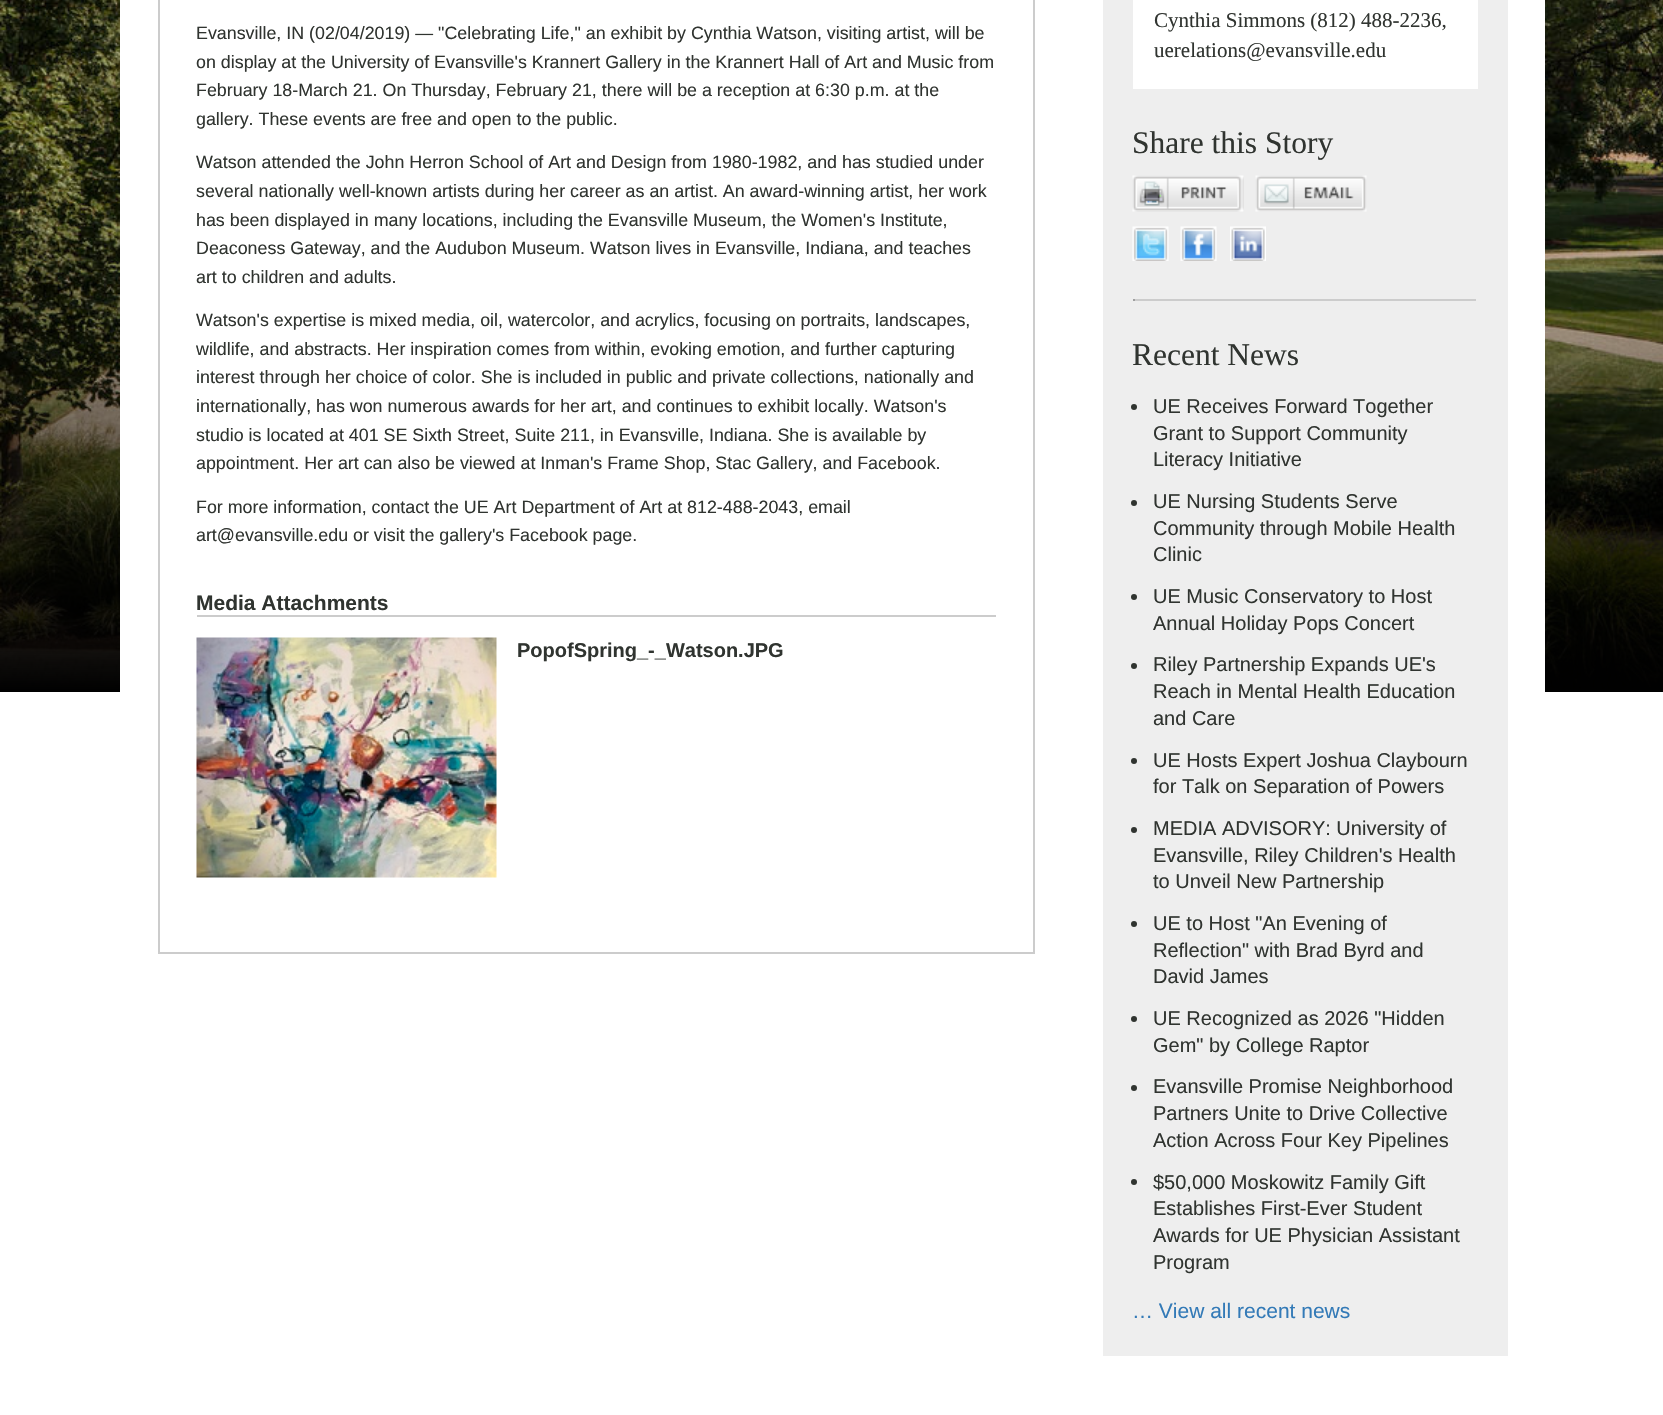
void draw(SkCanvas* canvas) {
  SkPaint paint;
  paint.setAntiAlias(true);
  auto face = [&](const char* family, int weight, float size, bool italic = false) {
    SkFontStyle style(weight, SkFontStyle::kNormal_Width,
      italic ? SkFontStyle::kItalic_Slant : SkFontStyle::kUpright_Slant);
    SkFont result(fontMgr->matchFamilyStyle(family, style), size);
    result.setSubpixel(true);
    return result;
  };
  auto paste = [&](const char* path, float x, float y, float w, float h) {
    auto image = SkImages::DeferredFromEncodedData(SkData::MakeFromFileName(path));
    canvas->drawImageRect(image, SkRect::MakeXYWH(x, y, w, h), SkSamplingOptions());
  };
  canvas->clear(0xffffffff);
  paste("img/1.png", 0, 0, 1663, 689);
  {
    const SkColor colors[] = {0x00000000, 0xff000000};
    const float stops[] = {0.5f, 1};
    const SkPoint ends[] = {{832, -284}, {832, 692}};
    paint.setShader(SkGradientShader::MakeLinear(ends, colors, stops, 2, SkTileMode::kClamp));
    paint.setAlpha(255);
  }
  canvas->drawRect(SkRect::MakeXYWH(0, 215, 1663, 477), paint);
  paint.setShader(nullptr);
  paint.setColor(0xffffffff);
  canvas->drawRect(SkRect::MakeXYWH(120, 0, 1425, 692), paint);
  paint.setStroke(true);
  paint.setStrokeWidth(2);
  paint.setColor(0xffcccccc);
  canvas->drawRect(SkRect::MakeXYWH(159, -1, 875, 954), paint);
  paint.setStroke(false);
  canvas->drawRect(SkRect::MakeXYWH(197, 615, 799, 2), paint);
  paste("img/2.png", 196, 637, 301, 241);
  paint.setColor(0xffeeeeee);
  canvas->drawRect(SkRect::MakeXYWH(1103, 0, 405, 1356), paint);
  paint.setColor(0xffffffff);
  canvas->drawRect(SkRect::MakeXYWH(1133, 0, 345, 89), paint);
  paste("img/3.png", 1132, 175, 112, 37);
  paste("img/4.png", 1255, 175, 112, 37);
  paste("img/5.png", 1132, 226, 37, 35);
  paste("img/6.png", 1180, 226, 37, 35);
  paste("img/7.png", 1230, 226, 36, 35);
  {
    const struct { float x, y, w, h; SkColor color; } items[] = {
      {1133, 299, 345, 2, 0xffcccccc},
      {1476, 299, 2, 2, 0xffeeeeee},
      {1133, 299, 2, 2, 0xff9f9f9f},
    };
    for (auto [x, y, w, h, color] : items) {
      paint.setColor(color);
      canvas->drawRect(SkRect::MakeXYWH(x, y, w, h), paint);
    }
  }
  paint.setColor(0xff303430);
  canvas->drawCircle(1134, 407, 3, paint);
  canvas->drawCircle(1134, 503, 3, paint);
  canvas->drawCircle(1134, 597, 3, paint);
  canvas->drawCircle(1134, 666, 3, paint);
  canvas->drawCircle(1134, 761, 3, paint);
  canvas->drawCircle(1134, 830, 3, paint);
  canvas->drawCircle(1134, 924, 3, paint);
  canvas->drawCircle(1134, 1019, 3, paint);
  canvas->drawCircle(1134, 1088, 3, paint);
  canvas->drawCircle(1134, 1182, 3, paint);
  auto f0 = face("Liberation Sans", 400, 17.85f);
  {
    const struct { const char* s; float x, y; } items[] = {
      {"Evansville, IN (02/04/2019) — \"Celebrating Life,\" an exhibit by Cynthia Watson, visiting artist, will be", 196, 39},
      {"on display at the University of Evansville's Krannert Gallery in the Krannert Hall of Art and Music from", 196, 68},
      {"February 18-March 21. On Thursday, February 21, there will be a reception at 6:30 p.m. at the", 196, 96},
      {"gallery. These events are free and open to the public.", 196, 125},
      {"Watson attended the John Herron School of Art and Design from 1980-1982, and has studied under", 196, 168},
      {"several nationally well-known artists during her career as an artist. An award-winning artist, her work", 196, 197},
      {"has been displayed in many locations, including the Evansville Museum, the Women's Institute,", 196, 226},
      {"Deaconess Gateway, and the Audubon Museum. Watson lives in Evansville, Indiana, and teaches", 196, 254},
      {"art to children and adults.", 196, 283},
      {"Watson's expertise is mixed media, oil, watercolor, and acrylics, focusing on portraits, landscapes,", 196, 326},
      {"wildlife, and abstracts. Her inspiration comes from within, evoking emotion, and further capturing", 196, 355},
      {"interest through her choice of color. She is included in public and private collections, nationally and", 196, 383},
      {"internationally, has won numerous awards for her art, and continues to exhibit locally. Watson's", 196, 412},
      {"studio is located at 401 SE Sixth Street, Suite 211, in Evansville, Indiana. She is available by", 196, 441},
      {"appointment. Her art can also be viewed at Inman's Frame Shop, Stac Gallery, and Facebook.", 196, 469},
      {"For more information, contact the UE Art Department of Art at 812-488-2043, email", 196, 513},
      {"art@evansville.edu or visit the gallery's Facebook page.", 196, 541},
    };
    for (auto [s, x, y] : items) {
      canvas->drawString(s, x, y, f0, paint);
    }
  }
  auto f1 = face("Liberation Sans", 700, 21);
  canvas->drawString("Media Attachments", 196, 610, f1, paint);
  auto f2 = face("Liberation Sans", 700, 20);
  canvas->drawString("PopofSpring_-_Watson.JPG", 517, 657, f2, paint);
  auto f3 = face("Liberation Serif", 400, 21);
  canvas->drawString("Cynthia Simmons (812) 488-2236,", 1154, 27, f3, paint);
  canvas->drawString("uerelations@evansville.edu", 1154, 57, f3, paint);
  auto f4 = face("Liberation Serif", 400, 31.5f);
  canvas->drawString("Share this Story", 1132, 153, f4, paint);
  canvas->drawString("Recent News", 1132, 365, f4, paint);
  auto f5 = face("Liberation Sans", 400, 20);
  {
    const struct { const char* s; float x, y; } items[] = {
      {"UE Receives Forward Together", 1153, 413},
      {"Grant to Support Community", 1153, 440},
      {"Literacy Initiative", 1153, 466},
      {"UE Nursing Students Serve", 1153, 508},
      {"Community through Mobile Health", 1153, 535},
      {"Clinic", 1153, 561},
      {"UE Music Conservatory to Host", 1153, 603},
      {"Annual Holiday Pops Concert", 1153, 630},
      {"Riley Partnership Expands UE's", 1153, 671},
      {"Reach in Mental Health Education", 1153, 698},
      {"and Care", 1153, 725},
      {"UE Hosts Expert Joshua Claybourn", 1153, 767},
      {"for Talk on Separation of Powers", 1153, 793},
      {"MEDIA ADVISORY: University of", 1153, 835},
      {"Evansville, Riley Children's Health", 1153, 862},
      {"to Unveil New Partnership", 1153, 888},
      {"UE to Host \"An Evening of", 1153, 930},
      {"Reflection\" with Brad Byrd and", 1153, 957},
      {"David James", 1153, 983},
      {"UE Recognized as 2026 \"Hidden", 1153, 1025},
      {"Gem\" by College Raptor", 1153, 1052},
      {"Evansville Promise Neighborhood", 1153, 1093},
      {"Partners Unite to Drive Collective", 1153, 1120},
      {"Action Across Four Key Pipelines", 1153, 1147},
      {"$50,000 Moskowitz Family Gift", 1153, 1189},
      {"Establishes First-Ever Student", 1153, 1215},
      {"Awards for UE Physician Assistant", 1153, 1242},
      {"Program", 1153, 1269},
    };
    for (auto [s, x, y] : items) {
      canvas->drawString(s, x, y, f5, paint);
    }
  }
  auto f6 = face("Liberation Sans", 400, 21);
  paint.setColor(0xff337ab7);
  canvas->drawString("… View all recent news", 1132, 1318, f6, paint);
}
